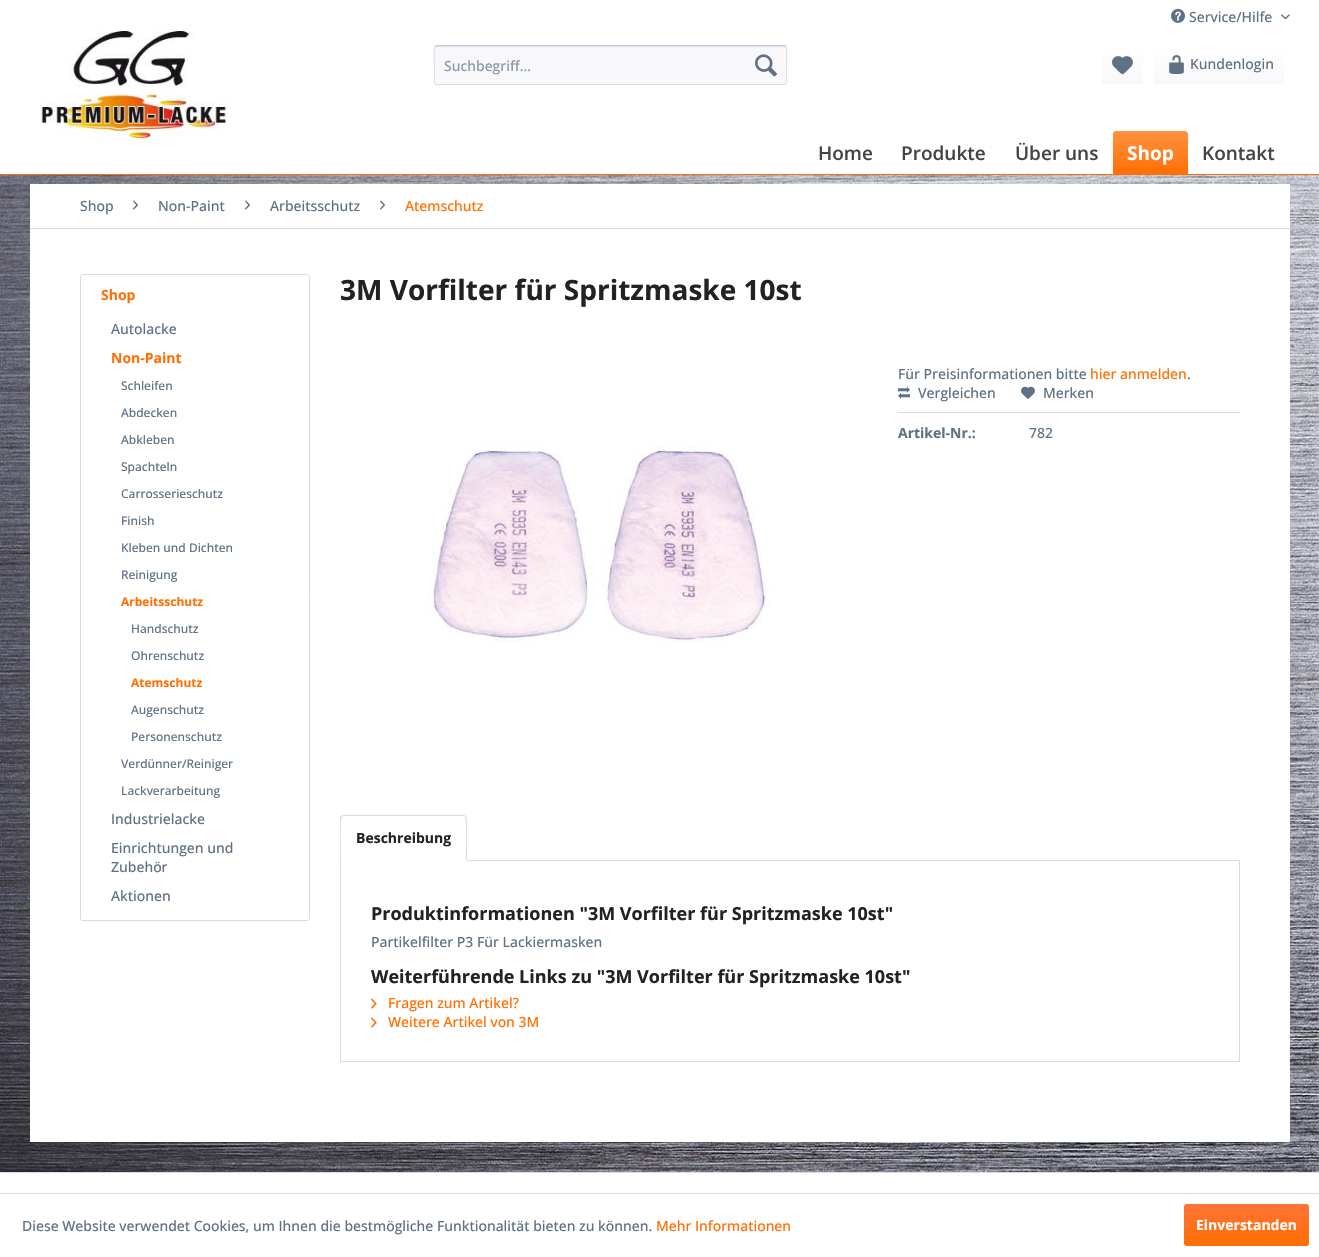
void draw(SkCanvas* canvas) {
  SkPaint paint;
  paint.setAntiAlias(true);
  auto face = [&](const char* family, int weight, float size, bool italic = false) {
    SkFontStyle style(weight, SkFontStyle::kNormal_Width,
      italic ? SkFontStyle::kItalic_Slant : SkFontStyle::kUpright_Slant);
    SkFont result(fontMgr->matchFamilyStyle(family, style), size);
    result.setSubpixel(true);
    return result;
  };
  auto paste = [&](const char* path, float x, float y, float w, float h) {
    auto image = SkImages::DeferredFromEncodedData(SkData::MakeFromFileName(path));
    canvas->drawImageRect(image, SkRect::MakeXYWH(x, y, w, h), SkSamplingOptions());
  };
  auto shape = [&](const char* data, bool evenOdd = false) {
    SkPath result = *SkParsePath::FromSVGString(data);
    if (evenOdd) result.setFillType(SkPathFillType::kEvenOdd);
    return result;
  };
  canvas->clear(0xffffffff);
  paste("img/1.png", 0, 175, 1319, 997);
  paste("img/2.png", 1171, 8, 14, 15);
  paste("img/3.png", 1281, 14, 9, 6);
  paste("img/4.png", 40, 31, 188, 113);
  paint.setColor(0xfff8f8fa);
  canvas->drawRoundRect(SkRect::MakeXYWH(434, 45, 353, 40), 3, 3, paint);
  paint.setColor(0xffdadae5);
  canvas->drawPath(shape("M437 47H784C785 47 786 48 786 49C786 48 786 46 784 46H437C435 46 435 48 435 49C435 48 436 47 437 47Z"), paint);
  paint.setStroke(true);
  paint.setStrokeWidth(1);
  paint.setColor(0xffcbcbdb);
  canvas->drawPath(shape("M435 46L437 45.5H784L786 46"), paint);
  paint.setColor(0xffdadae5);
  canvas->drawPath(shape("M786 46C787.5 48 786.5 67 786.5 70.5V76.5C786.5 78 788 84.5 784 84.5H437C433 84.5 434.5 78 434.5 76.5V70.5C434.5 67 433.5 48 435 46"), paint);
  paste("img/5.png", 755, 54, 22, 23);
  paint.setStroke(false);
  {
    const SkColor colors[] = {0xffffffff, 0xfff8f8fa};
    const float stops[] = {0, 1};
    const SkPoint ends[] = {{1123, 46}, {1123, 84}};
    paint.setShader(SkGradientShader::MakeLinear(ends, colors, stops, 2, SkTileMode::kClamp));
    paint.setAlpha(255);
  }
  canvas->drawRoundRect(SkRect::MakeXYWH(1102, 46, 41, 38), 2, 2, paint);
  paste("img/6.png", 1112, 56, 21, 19);
  {
    const SkColor colors[] = {0xffffffff, 0xfff8f8fa};
    const float stops[] = {0, 1};
    const SkPoint ends[] = {{1219, 46}, {1219, 84}};
    paint.setShader(SkGradientShader::MakeLinear(ends, colors, stops, 2, SkTileMode::kClamp));
    paint.setAlpha(255);
  }
  canvas->drawRoundRect(SkRect::MakeXYWH(1154, 46, 130, 38), 2, 2, paint);
  paste("img/7.png", 1169, 55, 15, 19);
  paint.setShader(nullptr);
  paint.setColor(0xffff6f03);
  canvas->drawRect(SkRect::MakeXYWH(0, 174, 1319, 1), paint);
  {
    const SkColor colors[] = {0xffff9240, 0xffff6f03};
    const float stops[] = {0, 1};
    const SkPoint ends[] = {{1151, 131}, {1151, 174}};
    paint.setShader(SkGradientShader::MakeLinear(ends, colors, stops, 2, SkTileMode::kClamp));
    paint.setAlpha(255);
  }
  canvas->drawPath(shape("M1116 131H1185C1186.5 131 1188 132.5 1188 134V174H1113V134C1113 132.5 1114.5 131 1116 131Z"), paint);
  paint.setShader(nullptr);
  paint.setColor(0xffffffff);
  canvas->drawRect(SkRect::MakeXYWH(30, 184, 1260, 958), paint);
  paint.setColor(0xffdadae5);
  canvas->drawRect(SkRect::MakeXYWH(30, 228, 1260, 1), paint);
  paste("img/8.png", 133, 200, 5, 10);
  paste("img/8.png", 245, 200, 5, 10);
  paste("img/8.png", 380, 200, 5, 10);
  paint.setStroke(true);
  canvas->drawRoundRect(SkRect::MakeXYWH(80.5f, 274.5f, 229, 646), 2.5f, 2.5f, paint);
  paint.setStroke(false);
  canvas->drawRect(SkRect::MakeXYWH(898, 412, 342, 1), paint);
  paste("img/9.png", 898, 386, 12, 13);
  paste("img/10.png", 1021, 386, 14, 13);
  paste("img/11.png", 426, 444, 344, 200);
  paint.setStroke(true);
  canvas->drawRect(SkRect::MakeXYWH(340.5f, 860.5f, 899, 201), paint);
  paint.setStroke(false);
  paint.setColor(0xffffffff);
  canvas->drawPath(shape("M343 815H464C465.5 815 467 816.5 467 818V861H340V818C340 816.5 341.5 815 343 815Z"), paint);
  paint.setColor(0xffdadae5);
  canvas->drawPath(shape("M343 815L341 816L342 817L343 816H464L465 817L466 816L464 815Z"), paint);
  canvas->drawPath(shape("M467 861C467 856 468 818 466 816L465 817C467 818 466 855 466 860Z"), paint);
  paint.setColor(0xffffffff);
  canvas->drawPath(shape("M467 861L466 860H341L340 861Z"), paint);
  paint.setColor(0xffdadae5);
  canvas->drawPath(shape("M340 861L341 860C341 855 340 818 342 817L341 816L340 818Z"), paint);
  paste("img/12.png", 371, 998, 6, 11);
  paste("img/12.png", 371, 1017, 6, 11);
  canvas->drawRect(SkRect::MakeXYWH(0, 1172, 1319, 1), paint);
  canvas->drawRect(SkRect::MakeXYWH(0, 1193, 1319, 1), paint);
  {
    const SkColor colors[] = {0xffff7337, 0xffff6f03};
    const float stops[] = {0, 1};
    const SkPoint ends[] = {{1247, 1204}, {1247, 1246}};
    paint.setShader(SkGradientShader::MakeLinear(ends, colors, stops, 2, SkTileMode::kClamp));
    paint.setAlpha(255);
  }
  canvas->drawRoundRect(SkRect::MakeXYWH(1184, 1204, 125, 42), 3, 3, paint);
  auto f0 = face("Open Sans", 500, 14);
  paint.setShader(nullptr);
  paint.setColor(0xff5f7285);
  canvas->drawString("Service/Hilfe", 1189, 22, f0, paint);
  paint.setColor(0xff8798a9);
  canvas->drawString("Suchbegriff...", 444, 71, f0, paint);
  paint.setColor(0xff5f7285);
  canvas->drawString("Kundenlogin", 1190, 69, f0, paint);
  auto f1 = face("Open Sans", 600, 19);
  paint.setColor(0xff444444);
  {
    const struct { const char* s; float x, y; } items[] = {
      {"Home", 818, 160},
      {"Produkte", 901, 160},
      {"Über uns", 1015, 160},
    };
    for (auto [s, x, y] : items) {
      canvas->drawString(s, x, y, f1, paint);
    }
  }
  auto f2 = face("Open Sans", 700, 19);
  paint.setColor(0xffffffff);
  canvas->drawString("Shop", 1127, 160, f2, paint);
  paint.setColor(0xff444444);
  canvas->drawString("Kontakt", 1202, 160, f1, paint);
  paint.setColor(0xff5f7285);
  {
    const struct { const char* s; float x, y; } items[] = {
      {"Shop", 80, 211},
      {"Non-Paint", 158, 211},
      {"Arbeitsschutz", 270, 211},
    };
    for (auto [s, x, y] : items) {
      canvas->drawString(s, x, y, f0, paint);
    }
  }
  paint.setColor(0xffff6f03);
  canvas->drawString("Atemschutz", 405, 211, f0, paint);
  auto f3 = face("Open Sans", 700, 14);
  canvas->drawString("Shop", 101, 300, f3, paint);
  paint.setColor(0xff5f7285);
  canvas->drawString("Autolacke", 111, 334, f0, paint);
  paint.setColor(0xffff6f03);
  canvas->drawString("Non-Paint", 111, 363, f3, paint);
  auto f4 = face("Open Sans", 500, 12);
  paint.setColor(0xff5f7285);
  {
    const struct { const char* s; float x, y; } items[] = {
      {"Schleifen", 121, 390},
      {"Abdecken", 121, 417},
      {"Abkleben", 121, 444},
      {"Spachteln", 121, 471},
      {"Carrosserieschutz", 121, 498},
      {"Finish", 121, 525},
      {"Kleben und Dichten", 121, 552},
      {"Reinigung", 121, 579},
    };
    for (auto [s, x, y] : items) {
      canvas->drawString(s, x, y, f4, paint);
    }
  }
  auto f5 = face("Open Sans", 700, 12);
  paint.setColor(0xffff6f03);
  canvas->drawString("Arbeitsschutz", 121, 606, f5, paint);
  paint.setColor(0xff5f7285);
  canvas->drawString("Handschutz", 131, 633, f4, paint);
  canvas->drawString("Ohrenschutz", 131, 660, f4, paint);
  paint.setColor(0xffff6f03);
  canvas->drawString("Atemschutz", 131, 687, f5, paint);
  paint.setColor(0xff5f7285);
  {
    const struct { const char* s; float x, y; } items[] = {
      {"Augenschutz", 131, 714},
      {"Personenschutz", 131, 741},
      {"Verdünner/Reiniger", 121, 768},
      {"Lackverarbeitung", 121, 795},
    };
    for (auto [s, x, y] : items) {
      canvas->drawString(s, x, y, f4, paint);
    }
  }
  {
    const struct { const char* s; float x, y; } items[] = {
      {"Industrielacke", 111, 824},
      {"Einrichtungen und", 111, 853},
      {"Zubehör", 111, 872},
      {"Aktionen", 111, 901},
    };
    for (auto [s, x, y] : items) {
      canvas->drawString(s, x, y, f0, paint);
    }
  }
  auto f6 = face("Open Sans", 700, 28);
  paint.setColor(0xff222222);
  canvas->drawString("3M Vorfilter für Spritzmaske 10st", 340, 300, f6, paint);
  paint.setColor(0xff5f7285);
  canvas->drawString("Für Preisinformationen bitte", 898, 379, f0, paint);
  paint.setColor(0xffff6f03);
  canvas->drawString("hier anmelden", 1090, 379, f0, paint);
  paint.setColor(0xff5f7285);
  {
    const struct { const char* s; float x, y; } items[] = {
      {".", 1187, 379},
      {"Vergleichen", 918, 398},
      {"Merken", 1043, 398},
    };
    for (auto [s, x, y] : items) {
      canvas->drawString(s, x, y, f0, paint);
    }
  }
  canvas->drawString("Artikel-Nr.:", 898, 438, f3, paint);
  canvas->drawString("782", 1029, 438, f0, paint);
  paint.setColor(0xff222222);
  canvas->drawString("Beschreibung", 356, 843, f3, paint);
  auto f7 = face("Open Sans", 700, 18);
  canvas->drawString("Produktinformationen \"3M Vorfilter für Spritzmaske 10st\"", 371, 920, f7, paint);
  paint.setColor(0xff5f7285);
  canvas->drawString("Partikelfilter P3 Für Lackiermasken", 371, 947, f0, paint);
  paint.setColor(0xff222222);
  canvas->drawString("Weiterführende Links zu \"3M Vorfilter für Spritzmaske 10st\"", 371, 983, f7, paint);
  paint.setColor(0xffff6f03);
  canvas->drawString("Fragen zum Artikel?", 388, 1008, f0, paint);
  canvas->drawString("Weitere Artikel von 3M", 388, 1027, f0, paint);
  paint.setColor(0xff5f7285);
  canvas->drawString("Diese Website verwendet Cookies, um Ihnen die bestmögliche Funktionalität bieten zu können.", 22, 1231, f0, paint);
  paint.setColor(0xffff6f03);
  canvas->drawString("Mehr Informationen", 656, 1231, f0, paint);
  paint.setColor(0xffffffff);
  canvas->drawString("Einverstanden", 1196, 1230, f3, paint);
}
